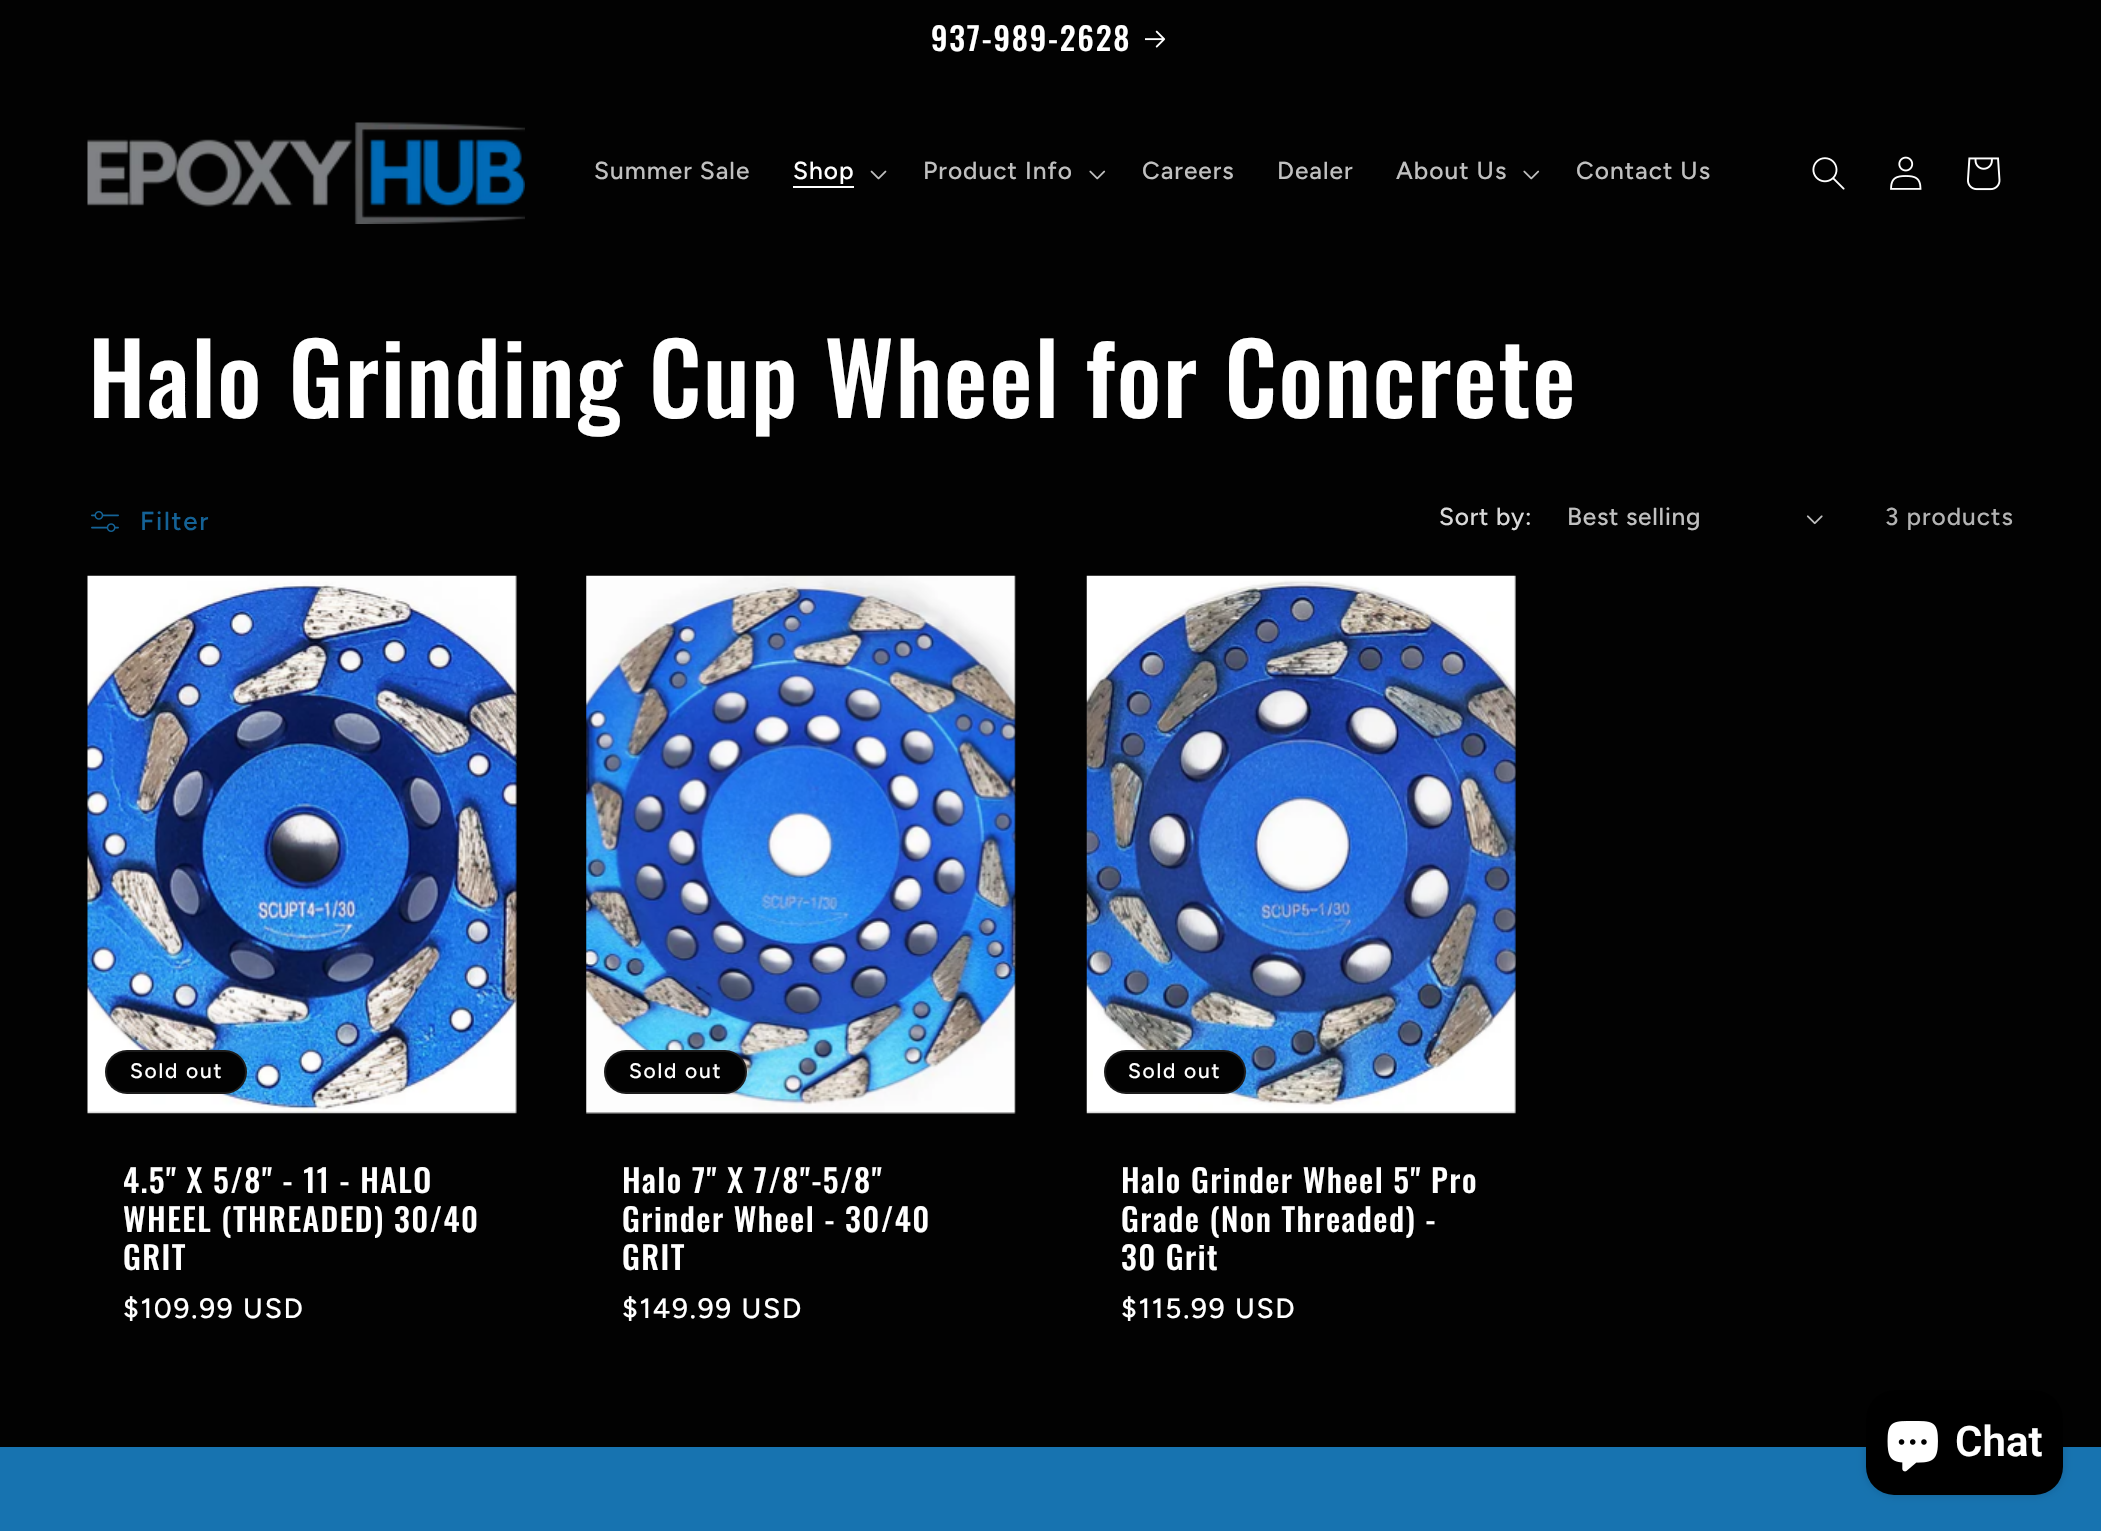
void draw(SkCanvas* canvas) {
  SkPaint paint;
  paint.setAntiAlias(true);
  auto face = [&](const char* family, int weight, float size, bool italic = false) {
    SkFontStyle style(weight, SkFontStyle::kNormal_Width,
      italic ? SkFontStyle::kItalic_Slant : SkFontStyle::kUpright_Slant);
    SkFont result(fontMgr->matchFamilyStyle(family, style), size);
    result.setSubpixel(true);
    return result;
  };
  auto writeSpaced = [&](const char* s, float x, float y, const SkFont& font, const SkPaint& ink, float letter, float word) {
    std::vector<SkGlyphID> glyphs(font.countText(s, strlen(s), SkTextEncoding::kUTF8));
    std::vector<float> xs(glyphs.size());
    font.textToGlyphs(s, strlen(s), SkTextEncoding::kUTF8, glyphs);
    font.getXPos(glyphs, xs, x);
    float extra = 0;
    for (size_t i = 0; i < glyphs.size(); i++) {
      xs[i] += extra;
      extra += letter + word * (glyphs[i] == font.unicharToGlyph(' '));
    }
    canvas->drawTextBlob(SkTextBlob::MakeFromPosHGlyphs(glyphs, xs, y, font), 0, 0, ink);
  };
  auto paste = [&](const char* path, float x, float y, float w, float h) {
    auto image = SkImages::DeferredFromEncodedData(SkData::MakeFromFileName(path));
    canvas->drawImageRect(image, SkRect::MakeXYWH(x, y, w, h), SkSamplingOptions());
  };
  canvas->clear(0xff020202);
  paste("img/1.png", 1145, 30, 21, 18);
  paste("img/2.png", 87, 122, 438, 102);
  paint.setColor(0xffffffff);
  canvas->drawRect(SkRect::MakeXYWH(793, 186, 61, 2), paint);
  paste("img/3.png", 870, 170, 17, 10);
  paste("img/4.png", 1089, 170, 17, 10);
  paste("img/4.png", 1523, 170, 17, 10);
  paste("img/5.png", 1812, 157, 33, 33);
  paste("img/6.png", 1890, 156, 32, 34);
  paste("img/7.png", 1967, 157, 34, 34);
  paste("img/8.png", 91, 511, 28, 21);
  paste("img/9.png", 1806, 515, 17, 10);
  paste("img/10.png", 87, 575, 430, 539);
  paint.setColor(0xff020202);
  canvas->drawRoundRect(SkRect::MakeXYWH(105, 1050, 142, 44), 22, 22, paint);
  paint.setStroke(true);
  paint.setStrokeWidth(2);
  paint.setColor(0x1affffff);
  canvas->drawRoundRect(SkRect::MakeXYWH(106, 1051, 140, 42), 21, 21, paint);
  paste("img/11.png", 586, 575, 430, 539);
  paint.setStroke(false);
  paint.setColor(0xff020202);
  canvas->drawRoundRect(SkRect::MakeXYWH(604, 1050, 143, 44), 22, 22, paint);
  paint.setStroke(true);
  paint.setColor(0x1affffff);
  canvas->drawRoundRect(SkRect::MakeXYWH(605, 1051, 141, 42), 21, 21, paint);
  paste("img/12.png", 1086, 575, 430, 539);
  paint.setStroke(false);
  paint.setColor(0xff020202);
  canvas->drawRoundRect(SkRect::MakeXYWH(1104, 1050, 142, 44), 22, 22, paint);
  paint.setStroke(true);
  paint.setColor(0x1affffff);
  canvas->drawRoundRect(SkRect::MakeXYWH(1105, 1051, 140, 42), 21, 21, paint);
  paint.setStroke(false);
  paint.setColor(0xff1773b0);
  canvas->drawRect(SkRect::MakeXYWH(0, 1447, 2101, 84), paint);
  paint.setColor(0x26000000);
  paint.setMaskFilter(SkMaskFilter::MakeBlur(kNormal_SkBlurStyle, 4.5f));
  canvas->drawRoundRect(SkRect::MakeXYWH(1866, 1390, 197, 105), 28, 28, paint);
  paint.setMaskFilter(nullptr);
  paint.setColor(0xff000000);
  canvas->drawRoundRect(SkRect::MakeXYWH(1866, 1390, 197, 105), 28, 28, paint);
  paste("img/13.png", 1887, 1421, 51, 51);
  auto f0 = face("Oswald", 500, 31.8f);
  paint.setColor(0xffffffff);
  writeSpaced("937-989-2628", 931, 51, f0, paint, 1.75f, 0);
  auto f1 = face("Figtree", 500, 24.5f);
  paint.setColor(0xffc0c0c0);
  writeSpaced("Summer Sale", 594, 179, f1, paint, 1, 0);
  paint.setColor(0xffffffff);
  writeSpaced("Shop", 793, 179, f1, paint, 1, 0);
  paint.setColor(0xffc0c0c0);
  {
    const struct { const char* s; float x, y; } items[] = {
      {"Product Info", 923, 179},
      {"Careers", 1142, 179},
      {"Dealer", 1277, 179},
      {"About Us", 1396, 179},
      {"Contact Us", 1576, 179},
    };
    for (auto [s, x, y] : items) {
      writeSpaced(s, x, y, f1, paint, 1, 0);
    }
  }
  auto f2 = face("Oswald", 500, 98);
  paint.setColor(0xffffffff);
  writeSpaced("Halo Grinding Cup Wheel for Concrete", 88, 418, f2, paint, 1.45f, 0);
  auto f3 = face("Figtree", 500, 26);
  paint.setColor(0xff146296);
  writeSpaced("Filter", 140, 530, f3, paint, 1.75f, 0);
  paint.setColor(0xffd9d9d9);
  writeSpaced("Sort by:", 1439, 525, f1, paint, 0.75f, 0);
  paint.setColor(0xffc0c0c0);
  writeSpaced("Best selling", 1567, 525, f1, paint, 0.75f, 0);
  paint.setColor(0xffb3b3b3);
  writeSpaced("3 products", 1885, 525, f1, paint, 1, 0);
  auto f4 = face("Figtree", 500, 21);
  paint.setColor(0xffffffff);
  writeSpaced("Sold out", 130, 1078, f4, paint, 1.75f, 0);
  {
    const struct { const char* s; float x, y; } items[] = {
      {"4.5\" X 5/8\" - 11 - HALO", 123, 1193},
      {"WHEEL (THREADED) 30/40", 123, 1232},
      {"GRIT", 123, 1270},
    };
    for (auto [s, x, y] : items) {
      writeSpaced(s, x, y, f0, paint, 1.45f, 0);
    }
  }
  auto f5 = face("Figtree", 500, 28);
  writeSpaced("$109.99 USD", 123, 1318, f5, paint, 1.75f, 0);
  writeSpaced("Sold out", 629, 1078, f4, paint, 1.75f, 0);
  {
    const struct { const char* s; float x, y; } items[] = {
      {"Halo 7\" X 7/8\"-5/8\"", 622, 1193},
      {"Grinder Wheel - 30/40", 622, 1232},
      {"GRIT", 622, 1270},
    };
    for (auto [s, x, y] : items) {
      writeSpaced(s, x, y, f0, paint, 1.45f, 0);
    }
  }
  writeSpaced("$149.99 USD", 622, 1318, f5, paint, 1.75f, 0);
  writeSpaced("Sold out", 1128, 1078, f4, paint, 1.75f, 0);
  {
    const struct { const char* s; float x, y; } items[] = {
      {"Halo Grinder Wheel 5\" Pro", 1121, 1193},
      {"Grade (Non Threaded) -", 1121, 1232},
      {"30 Grit", 1121, 1270},
    };
    for (auto [s, x, y] : items) {
      writeSpaced(s, x, y, f0, paint, 1.45f, 0);
    }
  }
  writeSpaced("$115.99 USD", 1121, 1318, f5, paint, 1.75f, 0);
  auto f6 = face("Roboto", 600, 42);
  canvas->drawString("Chat", 1955, 1456, f6, paint);
}
